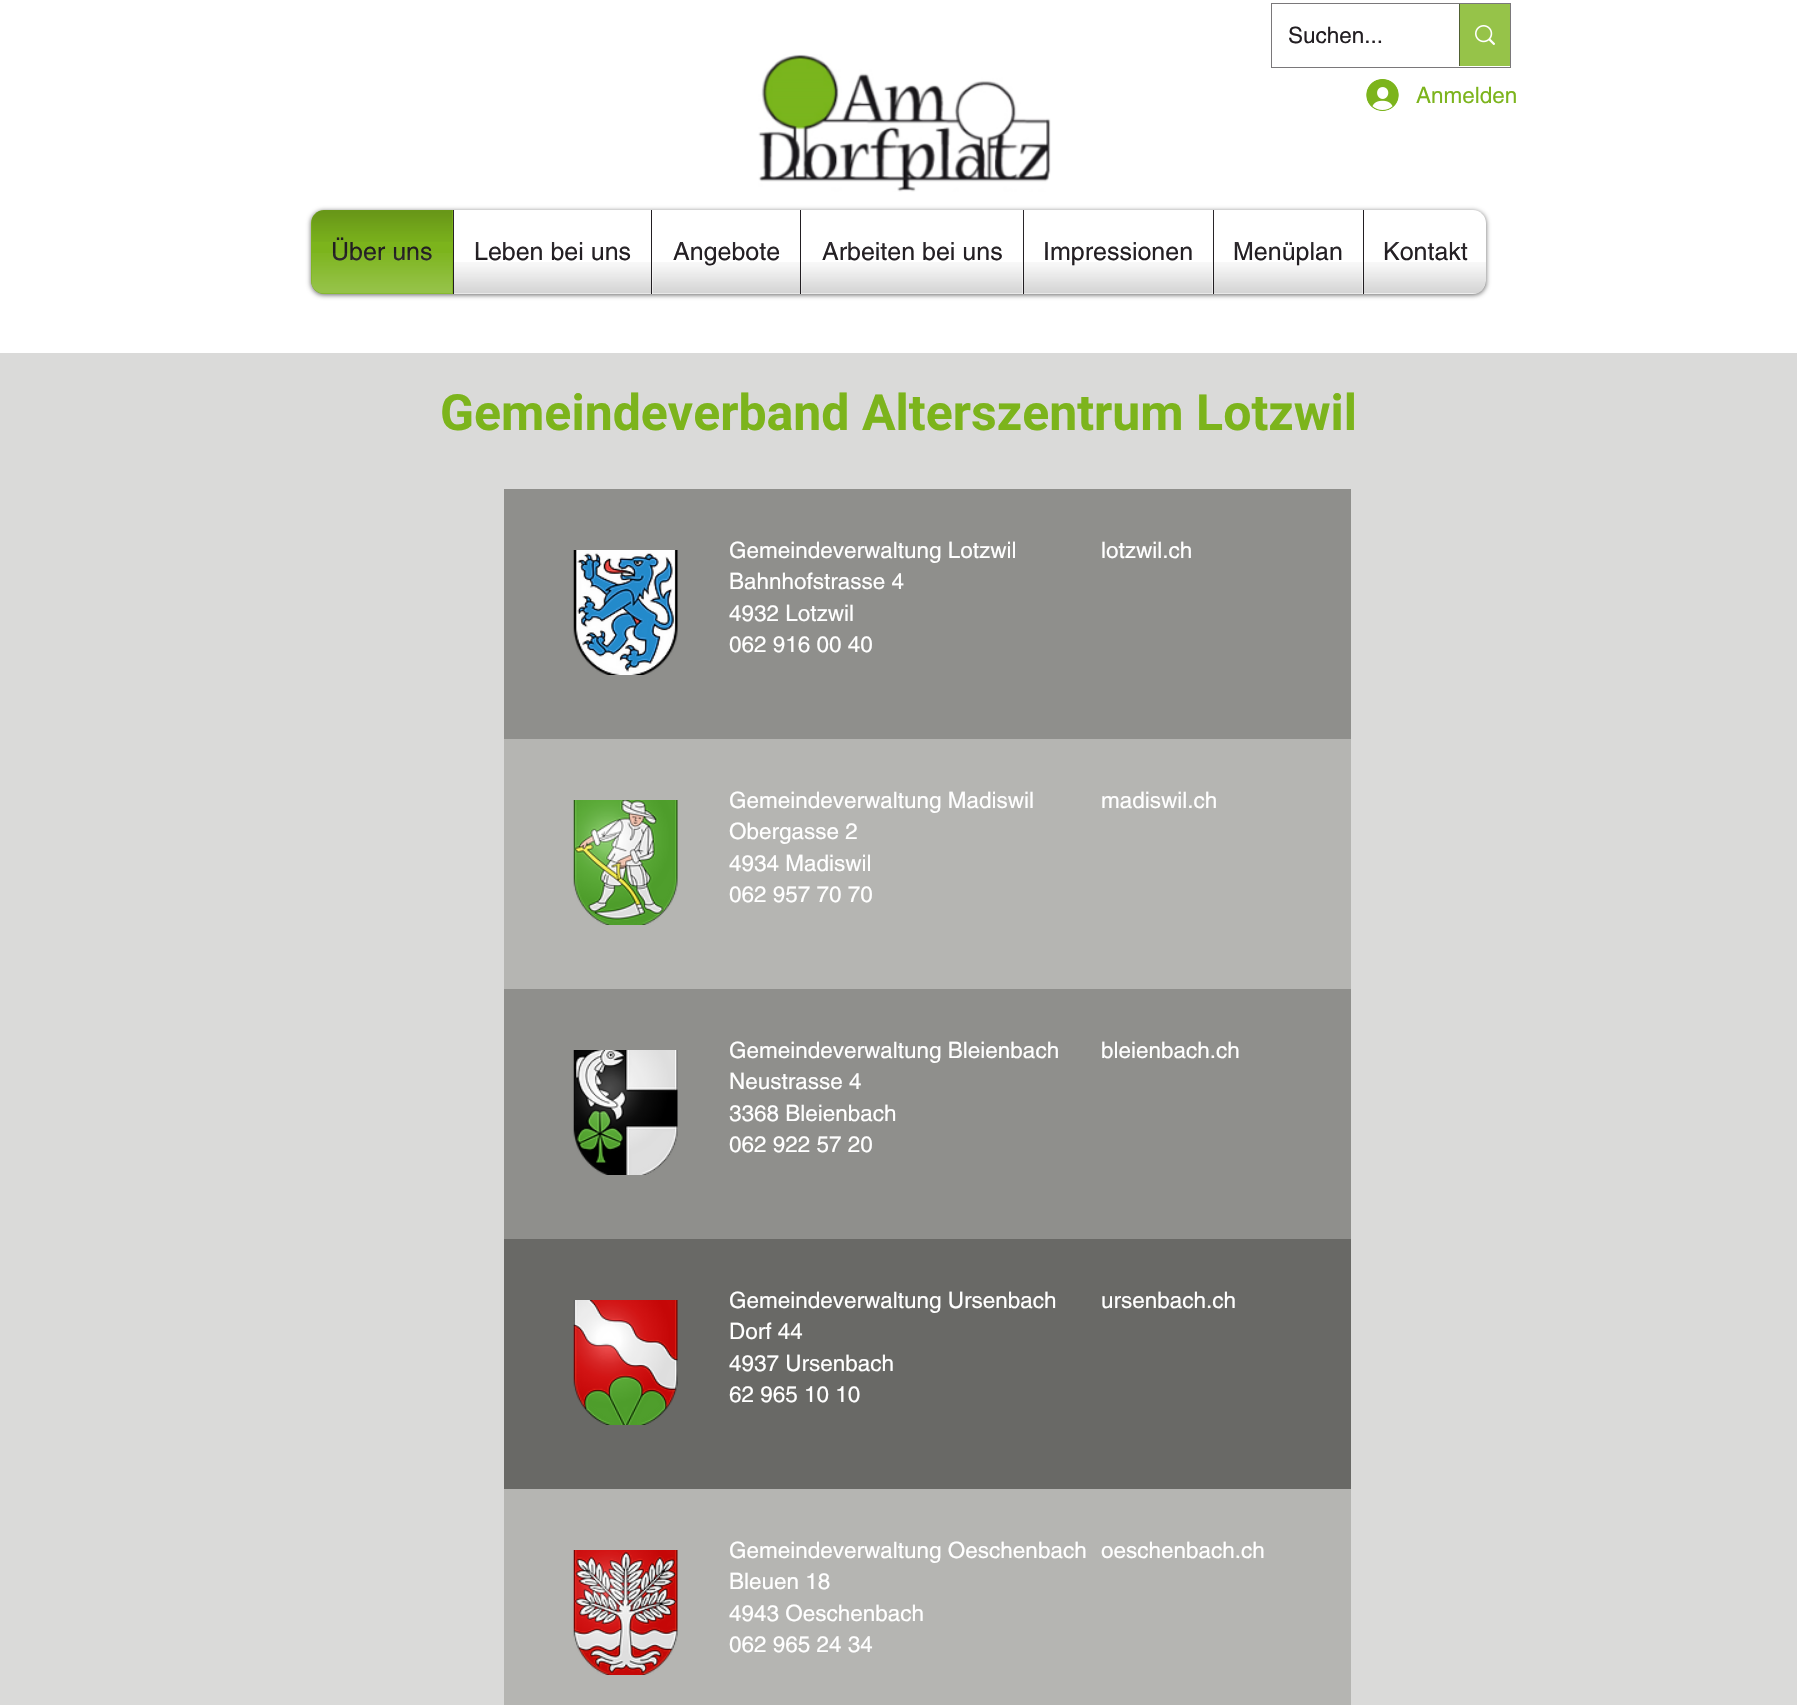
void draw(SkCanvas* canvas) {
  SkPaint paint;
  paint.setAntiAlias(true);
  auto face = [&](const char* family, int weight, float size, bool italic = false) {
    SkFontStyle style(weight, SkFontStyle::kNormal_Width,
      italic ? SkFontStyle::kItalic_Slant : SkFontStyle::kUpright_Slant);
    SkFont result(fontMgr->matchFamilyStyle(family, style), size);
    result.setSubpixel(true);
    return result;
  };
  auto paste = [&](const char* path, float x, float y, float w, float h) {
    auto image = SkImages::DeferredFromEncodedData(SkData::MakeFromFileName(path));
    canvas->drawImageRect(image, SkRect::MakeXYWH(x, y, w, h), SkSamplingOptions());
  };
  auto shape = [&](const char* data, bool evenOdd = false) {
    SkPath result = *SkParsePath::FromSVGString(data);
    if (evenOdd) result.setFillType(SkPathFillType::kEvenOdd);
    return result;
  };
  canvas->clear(0xffdadad9);
  paint.setColor(0xffffffff);
  canvas->drawRect(SkRect::MakeXYWH(0, 0, 1797, 353), paint);
  paint.setStroke(true);
  paint.setStrokeWidth(1);
  paint.setColor(0xff7a787a);
  canvas->drawRect(SkRect::MakeXYWH(1271.5f, 3.5f, 239, 64), paint);
  paint.setStroke(false);
  paint.setColor(0xff96c349);
  canvas->drawRect(SkRect::MakeXYWH(1460, 4, 50, 62), paint);
  paint.setColor(0xff506032);
  canvas->drawRect(SkRect::MakeXYWH(1459, 4, 1, 62), paint);
  paste("img/1.png", 1475, 25, 20, 20);
  paste("img/2.png", 758, 54, 293, 138);
  paste("img/3.png", 1366, 79, 33, 32);
  paint.setColor(0x99000000);
  paint.setMaskFilter(SkMaskFilter::MakeBlur(kNormal_SkBlurStyle, 2.5f));
  canvas->drawRoundRect(SkRect::MakeXYWH(311, 211, 1175, 84), 13, 13, paint);
  paint.setMaskFilter(nullptr);
  paste("img/4.png", 311, 281, 1175, 13);
  paint.setColor(0xff7cb41c);
  canvas->drawPath(shape("M324 210H453V294H324C317 294 311 288 311 281V223C311 216 317 210 324 210Z"), paint);
  paint.setColor(0xffffffff);
  canvas->drawRect(SkRect::MakeXYWH(454, 210, 197, 84), paint);
  paint.setColor(0xff221e22);
  canvas->drawRect(SkRect::MakeXYWH(453, 210, 1, 84), paint);
  paste("img/8.png", 454, 262, 197, 32);
  {
    const struct { float x, y, w, h; SkColor color; } items[] = {
      {652, 210, 148, 84, 0xffffffff},
      {651, 210, 1, 84, 0xff221e22},
      {801, 210, 222, 84, 0xffffffff},
      {800, 210, 1, 84, 0xff221e22},
    };
    for (auto [x, y, w, h, color] : items) {
      paint.setColor(color);
      canvas->drawRect(SkRect::MakeXYWH(x, y, w, h), paint);
    }
  }
  paste("img/12.png", 801, 262, 222, 32);
  {
    const struct { float x, y, w, h; SkColor color; } items[] = {
      {1024, 210, 189, 84, 0xffffffff},
      {1023, 210, 1, 84, 0xff221e22},
      {1214, 210, 149, 84, 0xffffffff},
      {1213, 210, 1, 84, 0xff221e22},
    };
    for (auto [x, y, w, h, color] : items) {
      paint.setColor(color);
      canvas->drawRect(SkRect::MakeXYWH(x, y, w, h), paint);
    }
  }
  paint.setColor(0xffffffff);
  canvas->drawPath(shape("M1363 210H1473C1480 210 1486 216 1486 223V281C1486 288 1480 294 1473 294H1363Z"), paint);
  paint.setColor(0xff221e22);
  canvas->drawRect(SkRect::MakeXYWH(1363, 210, 1, 84), paint);
  paste("img/18.png", 1364, 262, 122, 32);
  paint.setColor(0xff8f8f8c);
  canvas->drawRect(SkRect::MakeXYWH(504, 489, 847, 250), paint);
  paste("img/19.png", 573, 550, 105, 125);
  paint.setColor(0xffb5b5b2);
  canvas->drawRect(SkRect::MakeXYWH(504, 739, 847, 250), paint);
  paste("img/20.png", 573, 800, 105, 125);
  paint.setColor(0xff8f8f8c);
  canvas->drawRect(SkRect::MakeXYWH(504, 989, 847, 250), paint);
  paste("img/21.png", 573, 1050, 105, 125);
  paint.setColor(0xff696966);
  canvas->drawRect(SkRect::MakeXYWH(504, 1239, 847, 250), paint);
  paste("img/22.png", 573, 1300, 105, 125);
  paint.setColor(0xffb5b5b2);
  canvas->drawRect(SkRect::MakeXYWH(504, 1489, 847, 216), paint);
  paste("img/23.png", 573, 1550, 105, 125);
  auto f0 = face("helvetica", 400, 22.5f);
  paint.setColor(0xff221e22);
  canvas->drawString("Suchen...", 1288, 43, f0, paint);
  paint.setColor(0xff7cb41c);
  canvas->drawString("Anmelden", 1416, 103, f0, paint);
  auto f1 = face("helvetica", 400, 25);
  paint.setColor(0xff221e22);
  canvas->drawString("Über uns", 331, 260, f1, paint);
  paste("img/6.png", 311, 253, 142, 41);
  paste("img/5.png", 311, 210, 142, 32);
  canvas->drawString("Leben bei uns", 474, 260, f1, paint);
  paste("img/7.png", 453, 210, 176, 41);
  canvas->drawString("Angebote", 673, 260, f1, paint);
  paste("img/10.png", 652, 262, 148, 32);
  paste("img/9.png", 677, 242, 101, 9);
  canvas->drawString("Arbeiten bei uns", 822, 260, f1, paint);
  paste("img/11.png", 826, 242, 174, 9);
  canvas->drawString("Impressionen", 1043, 260, f1, paint);
  paste("img/14.png", 1024, 262, 189, 32);
  paste("img/13.png", 1023, 210, 168, 41);
  canvas->drawString("Menüplan", 1233, 260, f1, paint);
  paste("img/16.png", 1214, 262, 149, 32);
  paste("img/15.png", 1213, 210, 128, 41);
  canvas->drawString("Kontakt", 1383, 260, f1, paint);
  paste("img/17.png", 1384, 242, 83, 9);
  auto f2 = face("Roboto", 700, 50);
  paint.setColor(0xff7cb41c);
  canvas->drawString("Gemeindeverband Alterszentrum Lotzwil", 440, 430, f2, paint);
  paint.setColor(0xffffffff);
  {
    const struct { const char* s; float x, y; } items[] = {
      {"Gemeindeverwaltung Lotzwil", 729, 558},
      {"Bahnhofstrasse 4", 729, 589},
      {"4932 Lotzwil", 729, 621},
      {"062 916 00 40", 729, 652},
      {"lotzwil.ch", 1101, 558},
      {"Gemeindeverwaltung Madiswil", 729, 808},
      {"Obergasse 2", 729, 839},
      {"4934 Madiswil", 729, 871},
      {"062 957 70 70", 729, 902},
      {"madiswil.ch", 1101, 808},
      {"Gemeindeverwaltung Bleienbach", 729, 1058},
      {"Neustrasse 4", 729, 1089},
      {"3368 Bleienbach", 729, 1121},
      {"062 922 57 20", 729, 1152},
      {"bleienbach.ch", 1101, 1058},
      {"Gemeindeverwaltung Ursenbach", 729, 1308},
      {"Dorf 44", 729, 1339},
      {"4937 Ursenbach", 729, 1371},
      {"62 965 10 10", 729, 1402},
      {"ursenbach.ch", 1101, 1308},
      {"Gemeindeverwaltung Oeschenbach", 729, 1558},
      {"Bleuen 18", 729, 1589},
      {"4943 Oeschenbach", 729, 1621},
      {"062 965 24 34", 729, 1652},
      {"oeschenbach.ch", 1101, 1558},
    };
    for (auto [s, x, y] : items) {
      canvas->drawString(s, x, y, f0, paint);
    }
  }
}
